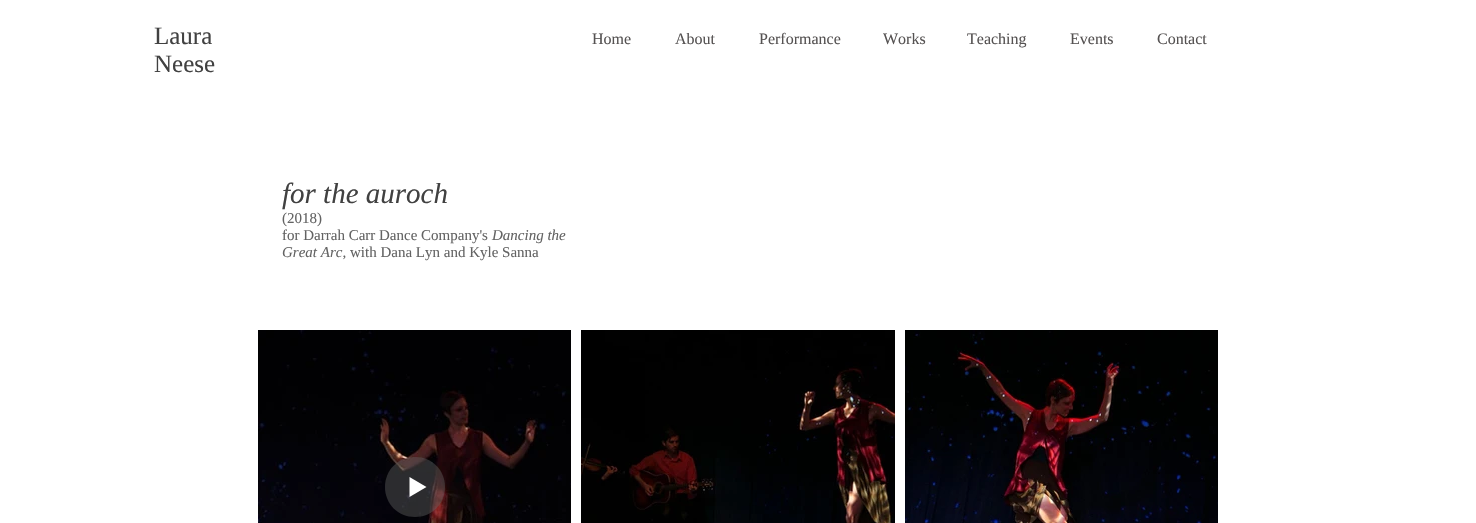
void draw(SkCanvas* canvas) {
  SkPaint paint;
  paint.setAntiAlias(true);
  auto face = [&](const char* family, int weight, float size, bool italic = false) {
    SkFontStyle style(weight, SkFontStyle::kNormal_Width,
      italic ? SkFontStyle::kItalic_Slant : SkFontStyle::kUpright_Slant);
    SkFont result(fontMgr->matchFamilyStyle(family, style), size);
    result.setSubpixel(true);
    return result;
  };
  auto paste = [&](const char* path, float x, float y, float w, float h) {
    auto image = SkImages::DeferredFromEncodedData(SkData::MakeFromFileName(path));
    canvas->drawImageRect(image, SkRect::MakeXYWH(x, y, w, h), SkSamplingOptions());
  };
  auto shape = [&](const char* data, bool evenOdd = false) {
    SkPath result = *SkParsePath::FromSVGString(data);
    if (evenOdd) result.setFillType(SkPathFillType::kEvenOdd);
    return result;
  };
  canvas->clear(0xffffffff);
  paste("img/1.png", 258, 330, 313, 193);
  paint.setColor(0x6b636363);
  canvas->drawPath(shape("M415 457C432 457 445 470 445 487C445 504 432 517 415 517C398 517 385 504 385 487C385 470 398 457 415 457Z", true), paint);
  paint.setColor(0xffffffff);
  canvas->drawPath(shape("M426.5 487L409.5 497V477Z"), paint);
  paste("img/2.png", 581, 330, 314, 193);
  paste("img/3.png", 905, 330, 313, 193);
  auto f0 = face("Liberation Serif", 400, 25);
  paint.setColor(0xff414141);
  canvas->drawString("Laura", 154, 44, f0, paint);
  canvas->drawString("Neese", 154, 72, f0, paint);
  auto f1 = face("Liberation Serif", 400, 16);
  paint.setColor(0xff555252);
  {
    const struct { const char* s; float x, y; } items[] = {
      {"Home", 592, 44},
      {"About", 675, 44},
      {"Performance", 759, 44},
      {"Works", 883, 44},
      {"Teaching", 967, 44},
      {"Events", 1070, 44},
      {"Contact", 1157, 44},
    };
    for (auto [s, x, y] : items) {
      canvas->drawString(s, x, y, f1, paint);
    }
  }
  auto f2 = face("Liberation Serif", 400, 29, true);
  paint.setColor(0xff414141);
  canvas->drawString("for the auroch", 282, 203, f2, paint);
  auto f3 = face("Liberation Serif", 400, 15);
  paint.setColor(0xff636363);
  canvas->drawString("(2018)", 282, 223, f3, paint);
  canvas->drawString("for Darrah Carr Dance Company's", 282, 240, f3, paint);
  auto f4 = face("Liberation Serif", 400, 15, true);
  canvas->drawString("Dancing the", 492, 240, f4, paint);
  canvas->drawString("Great Arc,", 282, 257, f4, paint);
  canvas->drawString("with Dana Lyn and Kyle Sanna", 350, 257, f3, paint);
}
